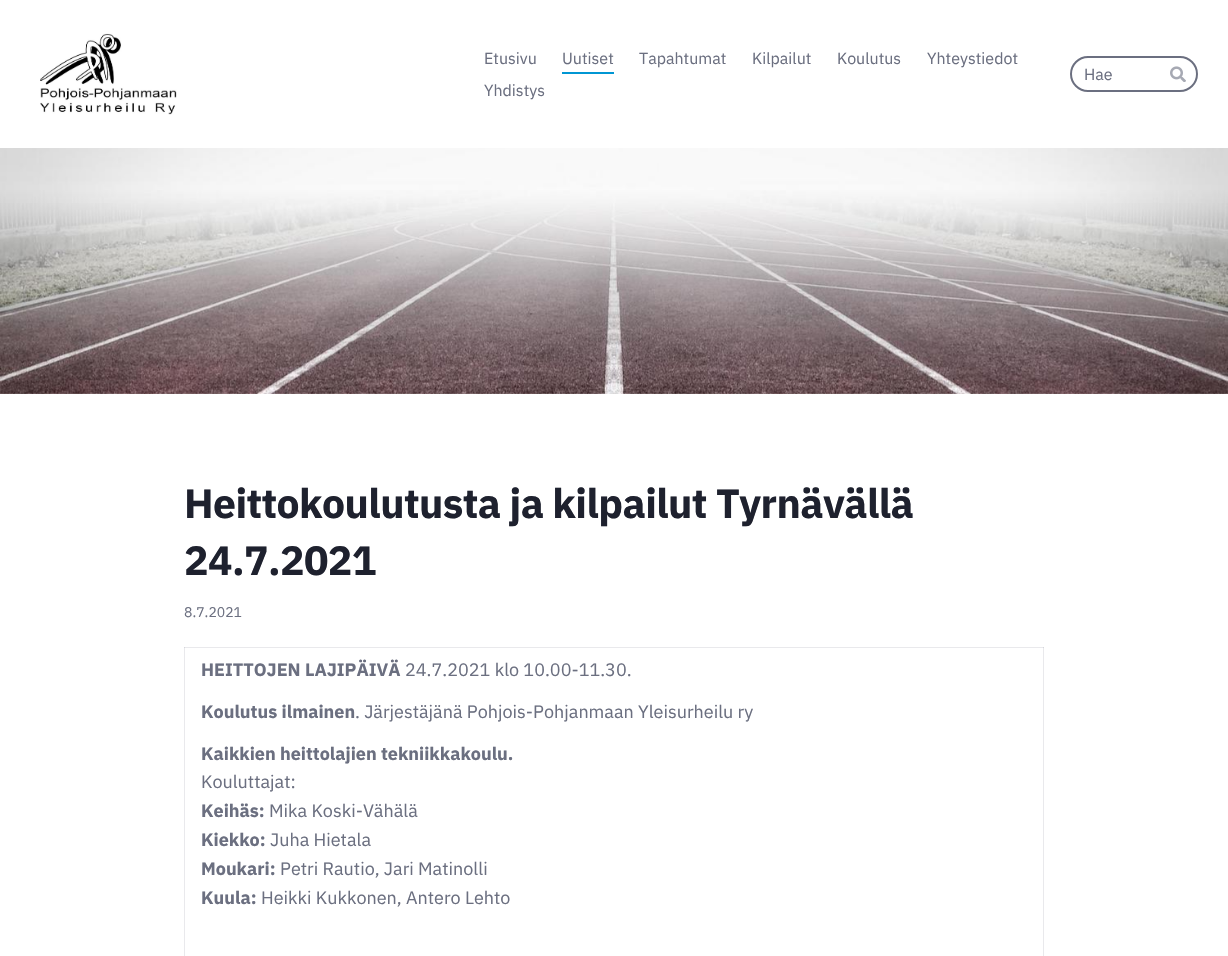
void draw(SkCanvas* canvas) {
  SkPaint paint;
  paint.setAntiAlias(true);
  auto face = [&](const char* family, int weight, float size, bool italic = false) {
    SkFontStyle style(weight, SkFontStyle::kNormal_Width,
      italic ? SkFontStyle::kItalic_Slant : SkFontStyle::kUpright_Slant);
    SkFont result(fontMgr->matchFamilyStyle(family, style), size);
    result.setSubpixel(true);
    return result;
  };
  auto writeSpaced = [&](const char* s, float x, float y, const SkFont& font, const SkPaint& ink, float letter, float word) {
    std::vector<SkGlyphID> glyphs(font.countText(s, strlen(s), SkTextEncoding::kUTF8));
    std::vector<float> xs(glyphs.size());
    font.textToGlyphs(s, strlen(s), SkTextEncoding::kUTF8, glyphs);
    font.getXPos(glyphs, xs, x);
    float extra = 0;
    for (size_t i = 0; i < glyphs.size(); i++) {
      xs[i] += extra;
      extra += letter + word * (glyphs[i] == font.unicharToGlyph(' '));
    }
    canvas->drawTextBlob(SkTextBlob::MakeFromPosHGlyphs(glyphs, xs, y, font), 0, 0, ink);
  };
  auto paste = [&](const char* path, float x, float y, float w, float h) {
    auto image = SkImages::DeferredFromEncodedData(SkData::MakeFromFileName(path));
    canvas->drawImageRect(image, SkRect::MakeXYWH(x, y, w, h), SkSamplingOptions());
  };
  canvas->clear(0xffffffff);
  paint.setColor(0xffe9e9ec);
  canvas->drawRect(SkRect::MakeXYWH(184, 647, 1, 309), paint);
  canvas->drawRect(SkRect::MakeXYWH(1043, 647, 1, 309), paint);
  paste("img/1.png", 0, 148, 1228, 246);
  paste("img/2.png", 40, 33, 137, 82);
  paint.setColor(0xff0096d3);
  canvas->drawRect(SkRect::MakeXYWH(562, 72, 52, 2), paint);
  paint.setStroke(true);
  paint.setStrokeWidth(2);
  paint.setColor(0xff6b6f80);
  canvas->drawRoundRect(SkRect::MakeXYWH(1071, 57, 126, 34), 17, 17, paint);
  paste("img/3.png", 1170, 66, 16, 16);
  paint.setStroke(false);
  {
    const struct { float x, y, w, h; SkColor color; } items[] = {
      {184, 647, 860, 1, 0xffe9e9ec},
      {184, 647, 1, 1, 0xffd6d7dc},
      {1043, 647, 1, 1, 0xffd6d7dc},
    };
    for (auto [x, y, w, h, color] : items) {
      paint.setColor(color);
      canvas->drawRect(SkRect::MakeXYWH(x, y, w, h), paint);
    }
  }
  auto f0 = face("IBM Plex Sans", 400, 16);
  paint.setColor(0xff6b6f80);
  {
    const struct { const char* s; float x, y; } items[] = {
      {"Etusivu", 484, 64},
      {"Uutiset", 562, 64},
      {"Tapahtumat", 639, 64},
      {"Kilpailut", 752, 64},
      {"Koulutus", 837, 64},
      {"Yhteystiedot", 927, 64},
      {"Yhdistys", 484, 96},
      {"Hae", 1084, 80},
    };
    for (auto [s, x, y] : items) {
      canvas->drawString(s, x, y, f0, paint);
    }
  }
  auto f1 = face("IBM Plex Sans", 700, 40.9f);
  paint.setColor(0xff1e212e);
  writeSpaced("Heittokoulutusta ja kilpailut Tyrnävällä", 184, 518, f1, paint, -0.6f, 0);
  writeSpaced("24.7.2021", 184, 575, f1, paint, -0.6f, 0);
  auto f2 = face("IBM Plex Sans", 400, 14);
  paint.setColor(0xff6b6f80);
  canvas->drawString("8.7.2021", 184, 617, f2, paint);
  auto f3 = face("IBM Plex Sans", 700, 18);
  canvas->drawString("HEITTOJEN LAJIPÄIVÄ", 201, 676, f3, paint);
  auto f4 = face("IBM Plex Sans", 400, 18);
  canvas->drawString("24.7.2021 klo 10.00-11.30.", 405, 676, f4, paint);
  canvas->drawString("Koulutus ilmainen", 201, 718, f3, paint);
  canvas->drawString(". Järjestäjänä Pohjois-Pohjanmaan Yleisurheilu ry", 355, 718, f4, paint);
  canvas->drawString("Kaikkien heittolajien tekniikkakoulu.", 201, 760, f3, paint);
  canvas->drawString("Kouluttajat:", 201, 788, f4, paint);
  canvas->drawString("Keihäs:", 201, 817, f3, paint);
  canvas->drawString("Mika Koski-Vähälä", 269, 817, f4, paint);
  canvas->drawString("Kiekko:", 201, 846, f3, paint);
  canvas->drawString("Juha Hietala", 270, 846, f4, paint);
  canvas->drawString("Moukari:", 201, 875, f3, paint);
  canvas->drawString("Petri Rautio, Jari Matinolli", 280, 875, f4, paint);
  canvas->drawString("Kuula:", 201, 904, f3, paint);
  canvas->drawString("Heikki Kukkonen, Antero Lehto", 261, 904, f4, paint);
}
